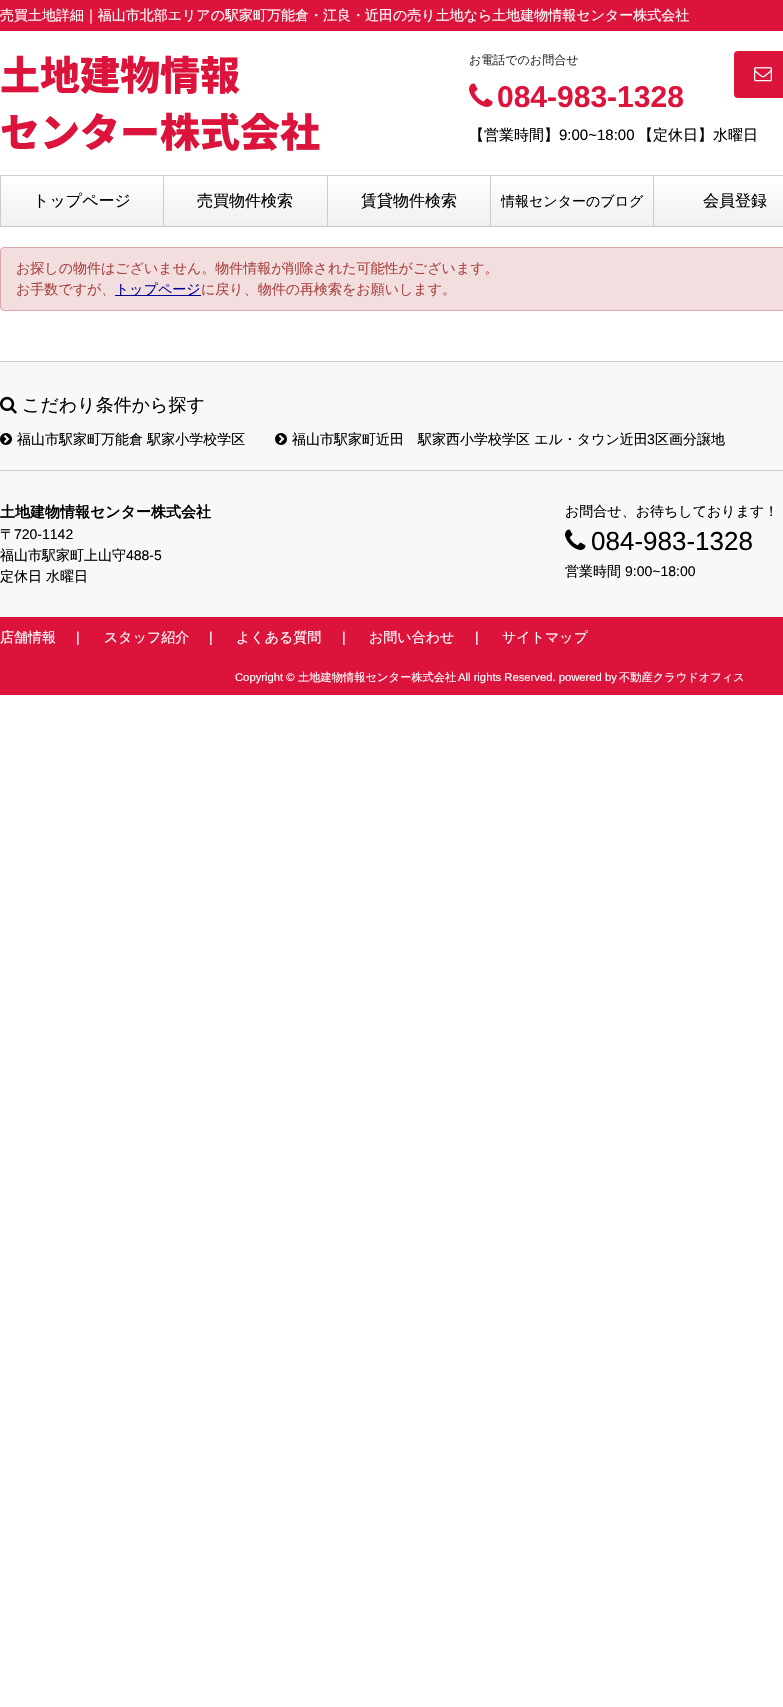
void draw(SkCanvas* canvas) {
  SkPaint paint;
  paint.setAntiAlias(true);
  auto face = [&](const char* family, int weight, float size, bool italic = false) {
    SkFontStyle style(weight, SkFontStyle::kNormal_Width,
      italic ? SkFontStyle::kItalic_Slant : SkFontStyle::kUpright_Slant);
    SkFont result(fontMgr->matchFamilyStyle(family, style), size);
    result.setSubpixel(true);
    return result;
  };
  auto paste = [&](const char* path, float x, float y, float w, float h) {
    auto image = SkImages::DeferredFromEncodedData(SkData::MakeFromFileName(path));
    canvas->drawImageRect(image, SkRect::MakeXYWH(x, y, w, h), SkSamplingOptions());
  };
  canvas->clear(0xffffffff);
  paint.setColor(0xffdc143c);
  canvas->drawRect(SkRect::MakeXYWH(0, 0, 783, 31), paint);
  paste("img/1.png", 469, 83, 24, 24);
  canvas->drawRoundRect(SkRect::MakeXYWH(734, 51, 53, 47), 4, 4, paint);
  paste("img/2.png", 754, 67, 18, 15);
  {
    const SkColor colors[] = {0xffffffff, 0xfff0f0f0};
    const float stops[] = {0, 1};
    const SkPoint ends[] = {{490, 176}, {490, 226}};
    paint.setShader(SkGradientShader::MakeLinear(ends, colors, stops, 2, SkTileMode::kClamp));
    paint.setAlpha(255);
  }
  canvas->drawRect(SkRect::MakeXYWH(1, 184, 782, 42), paint);
  paint.setShader(nullptr);
  {
    const struct { float x, y, w, h; SkColor color; } items[] = {
      {0, 175, 783, 1, 0xffcccccc},
      {0, 226, 783, 1, 0xffcccccc},
      {0, 176, 1, 50, 0xffcccccc},
      {163, 176, 1, 50, 0xffcccccc},
      {327, 176, 1, 50, 0xffcccccc},
      {490, 176, 1, 50, 0xffcccccc},
      {653, 176, 1, 50, 0xffcccccc},
    };
    for (auto [x, y, w, h, color] : items) {
      paint.setColor(color);
      canvas->drawRect(SkRect::MakeXYWH(x, y, w, h), paint);
    }
  }
  paint.setColor(0xfff2dede);
  canvas->drawRoundRect(SkRect::MakeXYWH(0.5f, 247.5f, 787, 63), 3.5f, 3.5f, paint);
  paint.setStroke(true);
  paint.setStrokeWidth(1);
  paint.setColor(0xffdca7a7);
  canvas->drawRoundRect(SkRect::MakeXYWH(0.5f, 247.5f, 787, 63), 3.5f, 3.5f, paint);
  paint.setStroke(false);
  {
    const struct { float x, y, w, h; SkColor color; } items[] = {
      {115, 295, 86, 1, 0xff000099},
      {0, 362, 783, 255, 0xfff8f8f8},
      {0, 361, 783, 1, 0xffcccccc},
      {0, 470, 783, 1, 0xffcccccc},
    };
    for (auto [x, y, w, h, color] : items) {
      paint.setColor(color);
      canvas->drawRect(SkRect::MakeXYWH(x, y, w, h), paint);
    }
  }
  paste("img/3.png", 0, 396, 17, 18);
  paste("img/4.png", 0, 433, 12, 12);
  paste("img/4.png", 275, 433, 12, 12);
  paste("img/5.png", 565, 529, 21, 21);
  paint.setColor(0xffdc143c);
  canvas->drawRect(SkRect::MakeXYWH(0, 617, 783, 78), paint);
  auto f0 = face("WenQuanYi Zen Hei", 500, 14);
  paint.setColor(0xffffffff);
  canvas->drawString("売買土地詳細｜福山市北部エリアの駅家町万能倉・江良・近田の売り土地なら土地建物情報センター株式会社", 0, 20, f0, paint);
  auto f1 = face("Noto Sans JP", 900, 40);
  paint.setColor(0xffdc143c);
  canvas->drawString("土地建物情報", 0, 90, f1, paint);
  canvas->drawString("センター株式会社", 0, 147, f1, paint);
  auto f2 = face("WenQuanYi Zen Hei", 500, 12);
  paint.setColor(0xff333333);
  canvas->drawString("お電話でのお問合せ", 469, 64, f2, paint);
  auto f3 = face("Liberation Sans", 700, 30);
  paint.setColor(0xffdc143c);
  canvas->drawString("084-983-1328", 497, 107, f3, paint);
  auto f4 = face("WenQuanYi Zen Hei", 500, 15);
  paint.setColor(0xff000000);
  canvas->drawString("【営業時間】", 469, 140, f4, paint);
  auto f5 = face("Liberation Sans", 400, 15);
  canvas->drawString("9:00~18:00", 559, 140, f5, paint);
  canvas->drawString("【定休日】水曜日", 638, 140, f4, paint);
  auto f6 = face("WenQuanYi Zen Hei", 500, 16);
  {
    const struct { const char* s; float x, y; } items[] = {
      {"トップページ", 33, 206},
      {"売買物件検索", 197, 206},
      {"賃貸物件検索", 361, 206},
    };
    for (auto [s, x, y] : items) {
      canvas->drawString(s, x, y, f6, paint);
    }
  }
  canvas->drawString("情報センターのブログ", 501, 206, f0, paint);
  canvas->drawString("会員登録", 703, 206, f6, paint);
  paint.setColor(0xffa94442);
  canvas->drawString("お探しの物件はございません。物件情報が削除された可能性がございます。", 16, 273, f0, paint);
  canvas->drawString("お手数ですが、", 16, 294, f0, paint);
  paint.setColor(0xff000099);
  canvas->drawString("トップページ", 115, 294, f0, paint);
  paint.setColor(0xffa94442);
  canvas->drawString("に戻り、物件の再検索をお願いします。", 201, 294, f0, paint);
  auto f7 = face("WenQuanYi Zen Hei", 500, 18);
  paint.setColor(0xff000000);
  canvas->drawString("こだわり条件から探す", 22, 411, f7, paint);
  canvas->drawString("福山市駅家町万能倉 駅家小学校学区", 17, 444, f0, paint);
  canvas->drawString("福山市駅家町近田　駅家西小学校学区 エル・タウン近田", 292, 444, f0, paint);
  auto f8 = face("Liberation Sans", 400, 14);
  canvas->drawString("3", 647, 444, f8, paint);
  canvas->drawString("区画分譲地", 655, 444, f0, paint);
  auto f9 = face("WenQuanYi Zen Hei", 700, 15);
  canvas->drawString("土地建物情報センター株式会社", 0, 517, f9, paint);
  canvas->drawString("〒", 0, 539, f0, paint);
  canvas->drawString("720-1142", 14, 539, f8, paint);
  canvas->drawString("福山市駅家町上山守", 0, 560, f0, paint);
  canvas->drawString("488-5", 126, 560, f8, paint);
  {
    const struct { const char* s; float x, y; } items[] = {
      {"定休日", 0, 581},
      {"水曜日", 46, 581},
      {"お問合せ、お待ちしております！", 565, 516},
    };
    for (auto [s, x, y] : items) {
      canvas->drawString(s, x, y, f0, paint);
    }
  }
  auto f10 = face("Liberation Sans", 400, 26);
  canvas->drawString("084-983-1328", 591, 550, f10, paint);
  canvas->drawString("営業時間", 565, 576, f0, paint);
  canvas->drawString("9:00~18:00", 625, 576, f8, paint);
  paint.setColor(0xffffffff);
  canvas->drawString("店舗情報", 0, 642, f0, paint);
  canvas->drawString("|", 76, 642, f8, paint);
  canvas->drawString("スタッフ紹介", 104, 642, f0, paint);
  canvas->drawString("|", 209, 642, f8, paint);
  canvas->drawString("よくある質問", 236, 642, f0, paint);
  canvas->drawString("|", 342, 642, f8, paint);
  canvas->drawString("お問い合わせ", 369, 642, f0, paint);
  canvas->drawString("|", 475, 642, f8, paint);
  canvas->drawString("サイトマップ", 502, 642, f0, paint);
  auto f11 = face("Liberation Sans", 400, 11.25f);
  canvas->drawString("Copyright ©", 235, 681, f11, paint);
  auto f12 = face("WenQuanYi Zen Hei", 500, 11.25f);
  canvas->drawString("土地建物情報センター株式会社", 298, 681, f12, paint);
  canvas->drawString("All rights Reserved. powered by", 458, 681, f11, paint);
  canvas->drawString("不動産クラウドオフィス", 619, 681, f12, paint);
}
